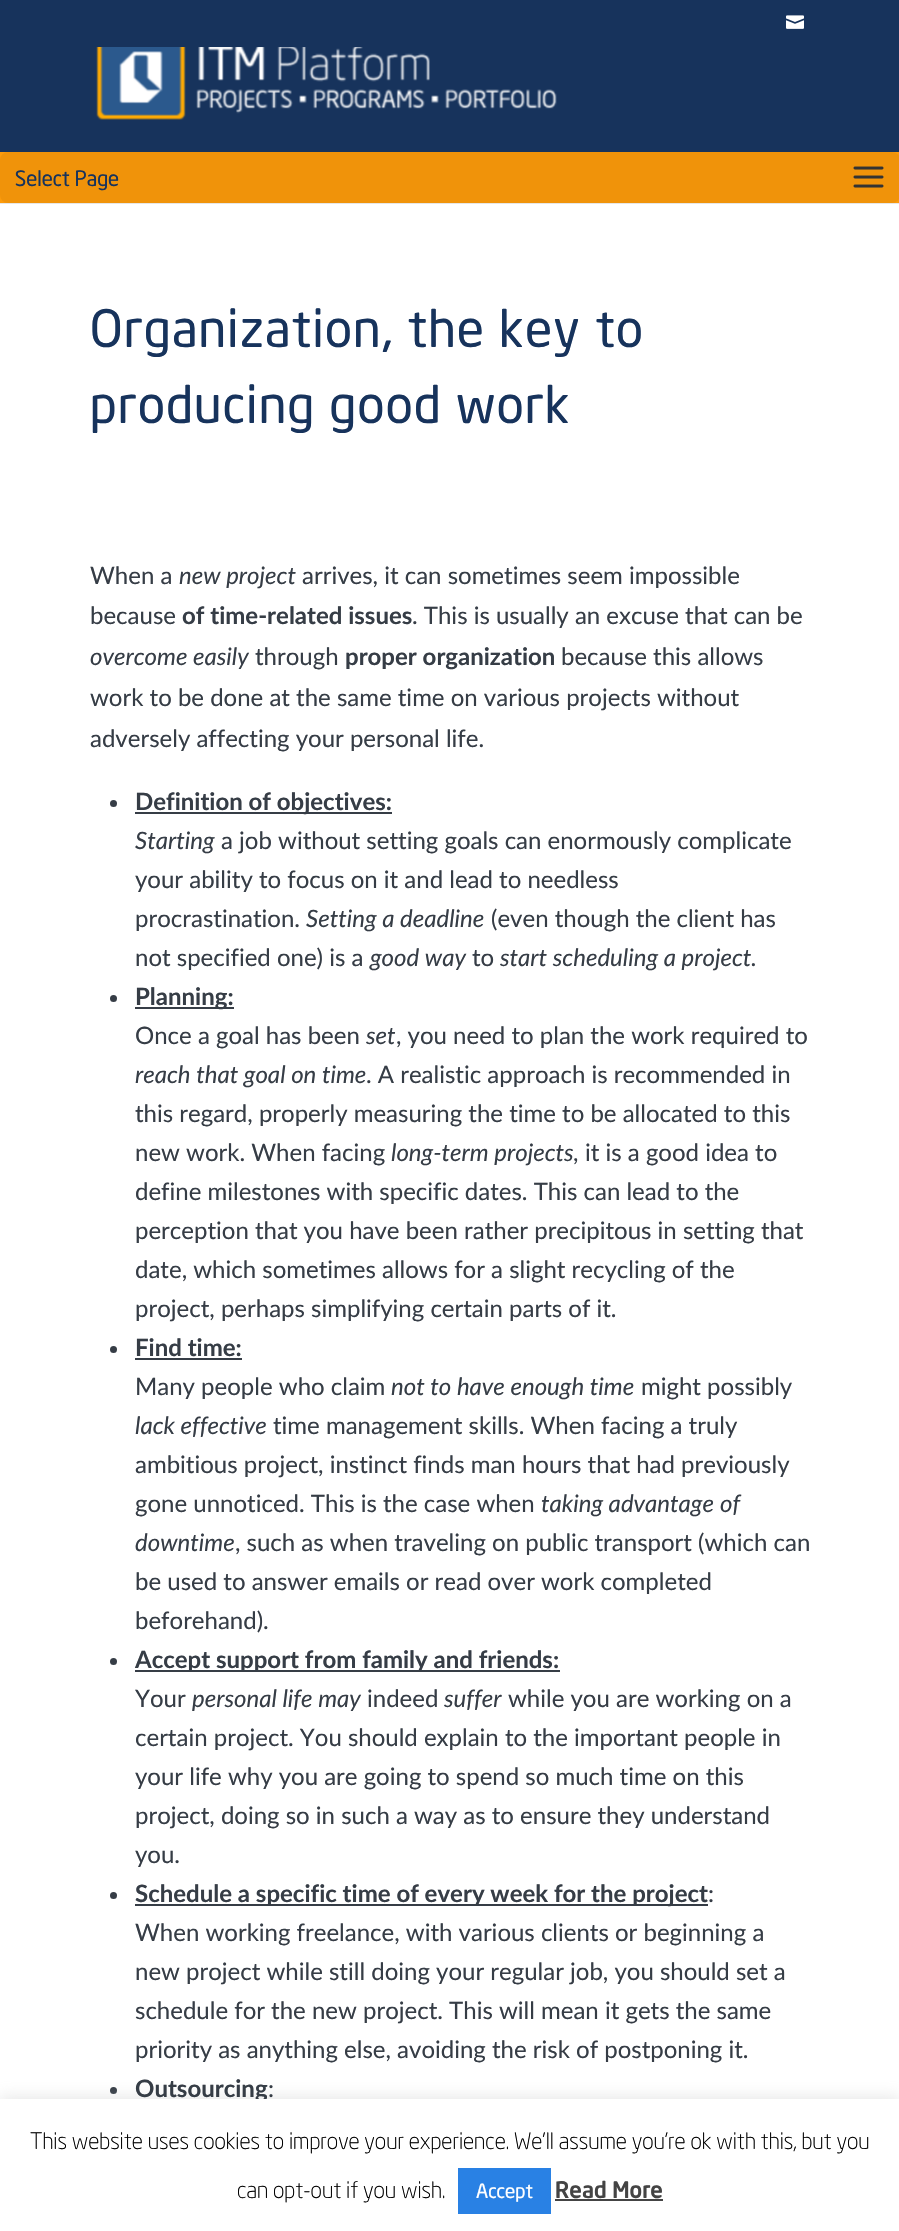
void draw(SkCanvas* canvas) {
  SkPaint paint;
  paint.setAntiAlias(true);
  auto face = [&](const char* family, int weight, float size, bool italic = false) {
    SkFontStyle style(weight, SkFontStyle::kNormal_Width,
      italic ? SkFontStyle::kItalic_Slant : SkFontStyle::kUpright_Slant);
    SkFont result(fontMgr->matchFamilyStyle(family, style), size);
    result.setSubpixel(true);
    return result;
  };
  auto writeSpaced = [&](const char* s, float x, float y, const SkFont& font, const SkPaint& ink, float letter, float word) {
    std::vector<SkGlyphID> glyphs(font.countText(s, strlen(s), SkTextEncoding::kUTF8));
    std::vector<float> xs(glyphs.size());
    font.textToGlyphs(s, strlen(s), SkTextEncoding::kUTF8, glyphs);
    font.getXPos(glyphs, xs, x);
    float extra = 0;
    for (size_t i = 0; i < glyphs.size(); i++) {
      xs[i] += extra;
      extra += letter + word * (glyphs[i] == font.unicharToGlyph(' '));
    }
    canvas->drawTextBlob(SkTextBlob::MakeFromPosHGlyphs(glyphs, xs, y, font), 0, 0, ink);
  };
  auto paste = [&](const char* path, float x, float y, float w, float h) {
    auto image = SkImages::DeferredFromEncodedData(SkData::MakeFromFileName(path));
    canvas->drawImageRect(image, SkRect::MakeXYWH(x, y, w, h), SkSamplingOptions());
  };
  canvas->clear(0xffffffff);
  paint.setColor(0xff17335c);
  canvas->drawRect(SkRect::MakeXYWH(0, 0, 899, 152), paint);
  paste("img/1.png", 786, 15, 18, 14);
  paint.setColor(0xffe6e6e6);
  canvas->drawRect(SkRect::MakeXYWH(0, 203, 899, 1), paint);
  paste("img/2.png", 96, 47, 461, 73);
  paint.setColor(0xfffd9b0b);
  canvas->drawRect(SkRect::MakeXYWH(0, 152, 899, 51), paint);
  paint.setColor(0xfff0930a);
  canvas->drawRoundRect(SkRect::MakeXYWH(0, 152, 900, 51), 8, 8, paint);
  paste("img/3.png", 853, 166, 31, 22);
  paint.setColor(0xff363d46);
  canvas->drawCircle(113.5f, 803.5f, 3.5f, paint);
  canvas->drawRect(SkRect::MakeXYWH(135, 812, 257, 2), paint);
  canvas->drawCircle(113.5f, 998.5f, 3.5f, paint);
  canvas->drawRect(SkRect::MakeXYWH(135, 1007, 99, 2), paint);
  canvas->drawCircle(113.5f, 1349.5f, 3.5f, paint);
  canvas->drawRect(SkRect::MakeXYWH(135, 1358, 107, 2), paint);
  canvas->drawCircle(113.5f, 1661.5f, 3.5f, paint);
  canvas->drawRect(SkRect::MakeXYWH(135, 1670, 425, 2), paint);
  canvas->drawCircle(113.5f, 1895.5f, 3.5f, paint);
  canvas->drawRect(SkRect::MakeXYWH(135, 1904, 573, 2), paint);
  canvas->drawCircle(113.5f, 2090.5f, 3.5f, paint);
  paint.setColor(0x4dacabab);
  paint.setMaskFilter(SkMaskFilter::MakeBlur(kNormal_SkBlurStyle, 7.5f));
  canvas->drawRect(SkRect::MakeXYWH(0, 2097, 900, 134), paint);
  paint.setMaskFilter(nullptr);
  auto f0 = face("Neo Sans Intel", 400, 21);
  paint.setColor(0xff17335c);
  canvas->drawString("Select Page", 15, 186, f0, paint);
  auto f1 = face("Neo Sans Intel", 400, 51);
  writeSpaced("Organization, the key to", 90, 347, f1, paint, 1.5f, 0);
  writeSpaced("producing good work", 90, 423, f1, paint, 1.5f, 0);
  auto f2 = face("Lato", 400, 24);
  paint.setColor(0xff363d46);
  canvas->drawString("When a", 90, 584, f2, paint);
  auto f3 = face("Lato", 400, 24, true);
  canvas->drawString("new project", 179, 584, f3, paint);
  canvas->drawString("arrives, it can sometimes seem impossible", 302, 584, f2, paint);
  canvas->drawString("because", 90, 624, f2, paint);
  auto f4 = face("Lato", 700, 24);
  canvas->drawString("of time-related issues", 182, 624, f4, paint);
  canvas->drawString(". This is usually an excuse that can be", 412, 624, f2, paint);
  canvas->drawString("overcome easily", 90, 665, f3, paint);
  canvas->drawString("through", 255, 665, f2, paint);
  canvas->drawString("proper organization", 345, 665, f4, paint);
  {
    const struct { const char* s; float x, y; } items[] = {
      {"because this allows", 561, 665},
      {"work to be done at the same time on various projects without", 90, 706},
      {"adversely affecting your personal life.", 90, 747},
    };
    for (auto [s, x, y] : items) {
      canvas->drawString(s, x, y, f2, paint);
    }
  }
  canvas->drawString("Definition of objectives:", 135, 810, f4, paint);
  canvas->drawString("Starting", 135, 849, f3, paint);
  {
    const struct { const char* s; float x, y; } items[] = {
      {"a job without setting goals can enormously complicate", 221, 849},
      {"your ability to focus on it and lead to needless", 135, 888},
      {"procrastination.", 135, 927},
    };
    for (auto [s, x, y] : items) {
      canvas->drawString(s, x, y, f2, paint);
    }
  }
  canvas->drawString("Setting a deadline", 306, 927, f3, paint);
  canvas->drawString("(even though the client has", 491, 927, f2, paint);
  canvas->drawString("not specified one) is a", 135, 966, f2, paint);
  canvas->drawString("good way", 370, 966, f3, paint);
  canvas->drawString("to", 472, 966, f2, paint);
  canvas->drawString("start scheduling a project.", 500, 966, f3, paint);
  canvas->drawString("Planning:", 135, 1005, f4, paint);
  canvas->drawString("Once a goal has been", 135, 1044, f2, paint);
  canvas->drawString("set", 366, 1044, f3, paint);
  canvas->drawString(", you need to plan the work required to", 396, 1044, f2, paint);
  canvas->drawString("reach that goal on time", 135, 1083, f3, paint);
  {
    const struct { const char* s; float x, y; } items[] = {
      {". A realistic approach is recommended in", 366, 1083},
      {"this regard, properly measuring the time to be allocated to this", 135, 1122},
      {"new work. When facing", 135, 1161},
    };
    for (auto [s, x, y] : items) {
      canvas->drawString(s, x, y, f2, paint);
    }
  }
  canvas->drawString("long-term projects,", 391, 1161, f3, paint);
  {
    const struct { const char* s; float x, y; } items[] = {
      {"it is a good idea to", 585, 1161},
      {"define milestones with specific dates. This can lead to the", 135, 1200},
      {"perception that you have been rather precipitous in setting that", 135, 1239},
      {"date, which sometimes allows for a slight recycling of the", 135, 1278},
      {"project, perhaps simplifying certain parts of it.", 135, 1317},
    };
    for (auto [s, x, y] : items) {
      canvas->drawString(s, x, y, f2, paint);
    }
  }
  canvas->drawString("Find time:", 135, 1356, f4, paint);
  canvas->drawString("Many people who claim", 135, 1395, f2, paint);
  canvas->drawString("not to have enough time", 391, 1395, f3, paint);
  canvas->drawString("might possibly", 641, 1395, f2, paint);
  canvas->drawString("lack effective", 135, 1434, f3, paint);
  {
    const struct { const char* s; float x, y; } items[] = {
      {"time management skills. When facing a truly", 273, 1434},
      {"ambitious project, instinct finds man hours that had previously", 135, 1473},
      {"gone unnoticed. This is the case when", 135, 1512},
    };
    for (auto [s, x, y] : items) {
      canvas->drawString(s, x, y, f2, paint);
    }
  }
  {
    const struct { const char* s; float x, y; } items[] = {
      {"taking advantage", 541, 1512},
      {"of", 720, 1512},
      {"downtime", 135, 1551},
    };
    for (auto [s, x, y] : items) {
      canvas->drawString(s, x, y, f3, paint);
    }
  }
  {
    const struct { const char* s; float x, y; } items[] = {
      {", such as when traveling on public transport (which can", 235, 1551},
      {"be used to answer emails or read over work completed", 135, 1590},
      {"beforehand).", 135, 1629},
    };
    for (auto [s, x, y] : items) {
      canvas->drawString(s, x, y, f2, paint);
    }
  }
  canvas->drawString("Accept support from family and friends:", 135, 1668, f4, paint);
  canvas->drawString("Your", 135, 1707, f2, paint);
  canvas->drawString("personal life may", 192, 1707, f3, paint);
  canvas->drawString("indeed", 367, 1707, f2, paint);
  canvas->drawString("suffer", 444, 1707, f3, paint);
  {
    const struct { const char* s; float x, y; } items[] = {
      {"while you are working on a", 508, 1707},
      {"certain project. You should explain to the important people in", 135, 1746},
      {"your life why you are going to spend so much time on this", 135, 1785},
      {"project, doing so in such a way as to ensure they understand", 135, 1824},
      {"you.", 135, 1863},
    };
    for (auto [s, x, y] : items) {
      canvas->drawString(s, x, y, f2, paint);
    }
  }
  canvas->drawString("Schedule a specific time of every week for the project", 135, 1902, f4, paint);
  {
    const struct { const char* s; float x, y; } items[] = {
      {":", 708, 1902},
      {"When working freelance, with various clients or beginning a", 135, 1941},
      {"new project while still doing your regular job, you should set a", 135, 1980},
      {"schedule for the new project. This will mean it gets the same", 135, 2019},
      {"priority as anything else, avoiding the risk of postponing it.", 135, 2058},
    };
    for (auto [s, x, y] : items) {
      canvas->drawString(s, x, y, f2, paint);
    }
  }
  canvas->drawString("Outsourcing", 135, 2097, f4, paint);
  canvas->drawString(":", 268, 2097, f2, paint);
  paint.setColor(0xffffffff);
  canvas->drawRect(SkRect::MakeXYWH(0, 2099, 899, 132), paint);
  auto f5 = face("Neo Sans Intel", 300, 22.5f);
  paint.setColor(0xff000000);
  canvas->drawString("This website uses cookies to improve your experience. We'll assume you're ok with this, but you", 30, 2149, f5, paint);
  canvas->drawString("can opt-out if you wish.", 237, 2198, f5, paint);
  paint.setColor(0xff2981e4);
  canvas->drawRect(SkRect::MakeXYWH(458, 2168, 93, 46), paint);
  auto f6 = face("Neo Sans Intel", 400, 19.5f);
  paint.setColor(0xffffffff);
  canvas->drawString("Accept", 476, 2198, f6, paint);
  auto f7 = face("Neo Sans Intel", 500, 22.5f);
  paint.setColor(0xff444444);
  canvas->drawString("Read More", 555, 2198, f7, paint);
  canvas->drawRect(SkRect::MakeXYWH(555, 2199, 108, 2), paint);
}
